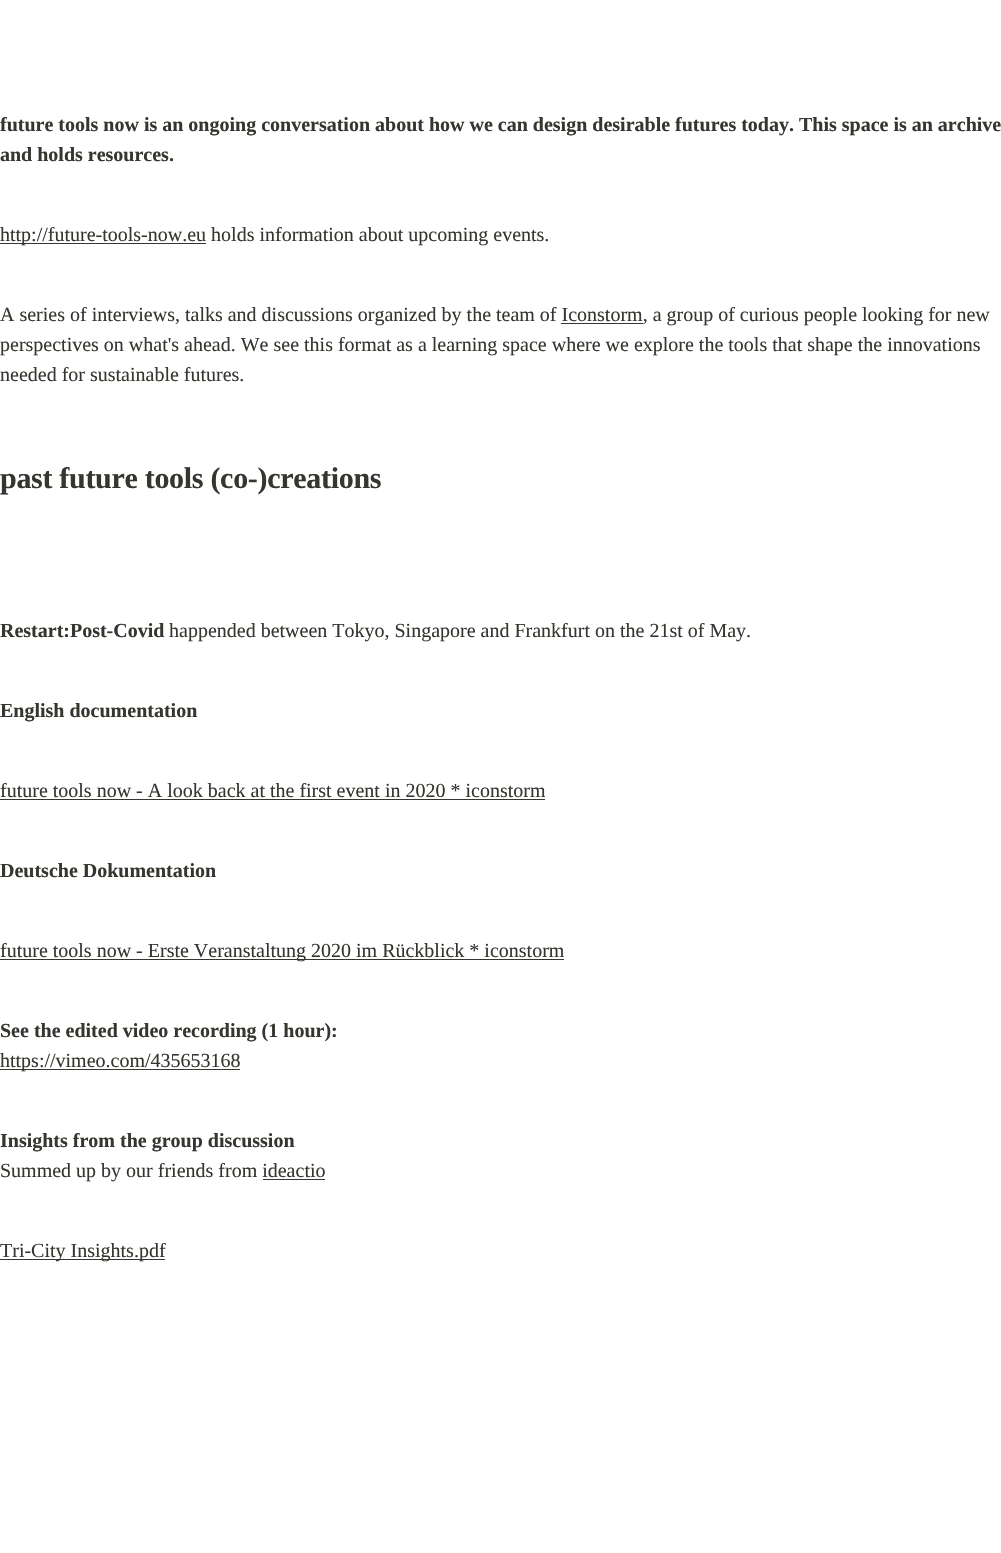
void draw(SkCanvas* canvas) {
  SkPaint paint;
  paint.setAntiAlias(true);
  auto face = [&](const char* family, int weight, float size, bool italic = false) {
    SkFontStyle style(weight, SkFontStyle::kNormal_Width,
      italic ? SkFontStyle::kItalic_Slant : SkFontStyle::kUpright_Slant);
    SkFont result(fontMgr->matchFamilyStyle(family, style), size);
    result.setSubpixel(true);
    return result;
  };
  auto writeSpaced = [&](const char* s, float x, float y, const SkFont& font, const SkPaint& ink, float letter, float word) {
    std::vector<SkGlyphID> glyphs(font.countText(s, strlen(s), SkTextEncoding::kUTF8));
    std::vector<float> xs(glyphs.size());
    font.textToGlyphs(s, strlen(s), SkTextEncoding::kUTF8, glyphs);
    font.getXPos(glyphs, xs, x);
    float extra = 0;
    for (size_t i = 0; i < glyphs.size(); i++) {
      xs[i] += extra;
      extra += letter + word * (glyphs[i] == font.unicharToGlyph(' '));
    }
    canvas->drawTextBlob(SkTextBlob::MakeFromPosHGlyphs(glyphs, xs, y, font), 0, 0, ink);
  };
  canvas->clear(0xffffffff);
  {
    const struct { float x, y, w, h; SkColor color; } items[] = {
      {0, 243, 206, 1, 0xff37352f},
      {561, 323, 82, 1, 0xff37352f},
      {0, 799, 545, 1, 0xff37352f},
      {0, 959, 564, 1, 0xff37352f},
      {0, 1069, 240, 1, 0xff37352f},
      {263, 1179, 62, 1, 0xff37352f},
      {0, 1259, 165, 1, 0xff37352f},
    };
    for (auto [x, y, w, h, color] : items) {
      paint.setColor(color);
      canvas->drawRect(SkRect::MakeXYWH(x, y, w, h), paint);
    }
  }
  auto f0 = face("Liberation Serif", 700, 20);
  canvas->drawString("future tools now is an ongoing conversation about how we can design desirable futures today. This space is an archive", 0, 131, f0, paint);
  canvas->drawString("and holds resources.", 0, 161, f0, paint);
  auto f1 = face("Liberation Serif", 400, 20);
  {
    const struct { const char* s; float x, y; } items[] = {
      {"http://future-tools-now.eu holds information about upcoming events.", 0, 241},
      {"A series of interviews, talks and discussions organized by the team of Iconstorm, a group of curious people looking for new", 0, 321},
      {"perspectives on what's ahead. We see this format as a learning space where we explore the tools that shape the innovations", 0, 351},
      {"needed for sustainable futures.", 0, 381},
    };
    for (auto [s, x, y] : items) {
      canvas->drawString(s, x, y, f1, paint);
    }
  }
  auto f2 = face("Liberation Serif", 700, 30);
  writeSpaced("past future tools (co-)creations", 0, 488, f2, paint, -0.3f, 0);
  canvas->drawString("Restart:Post-Covid", 0, 637, f0, paint);
  canvas->drawString("happended between Tokyo, Singapore and Frankfurt on the 21st of May.", 169, 637, f1, paint);
  canvas->drawString("English documentation", 0, 717, f0, paint);
  canvas->drawString("future tools now - A look back at the first event in 2020 * iconstorm", 0, 797, f1, paint);
  canvas->drawString("Deutsche Dokumentation", 0, 877, f0, paint);
  canvas->drawString("future tools now - Erste Veranstaltung 2020 im Rückblick * iconstorm", 0, 957, f1, paint);
  canvas->drawString("See the edited video recording (1 hour):", 0, 1037, f0, paint);
  canvas->drawString("https://vimeo.com/435653168", 0, 1067, f1, paint);
  canvas->drawString("Insights from the group discussion", 0, 1147, f0, paint);
  canvas->drawString("Summed up by our friends from ideactio", 0, 1177, f1, paint);
  canvas->drawString("Tri-City Insights.pdf", 0, 1257, f1, paint);
}
